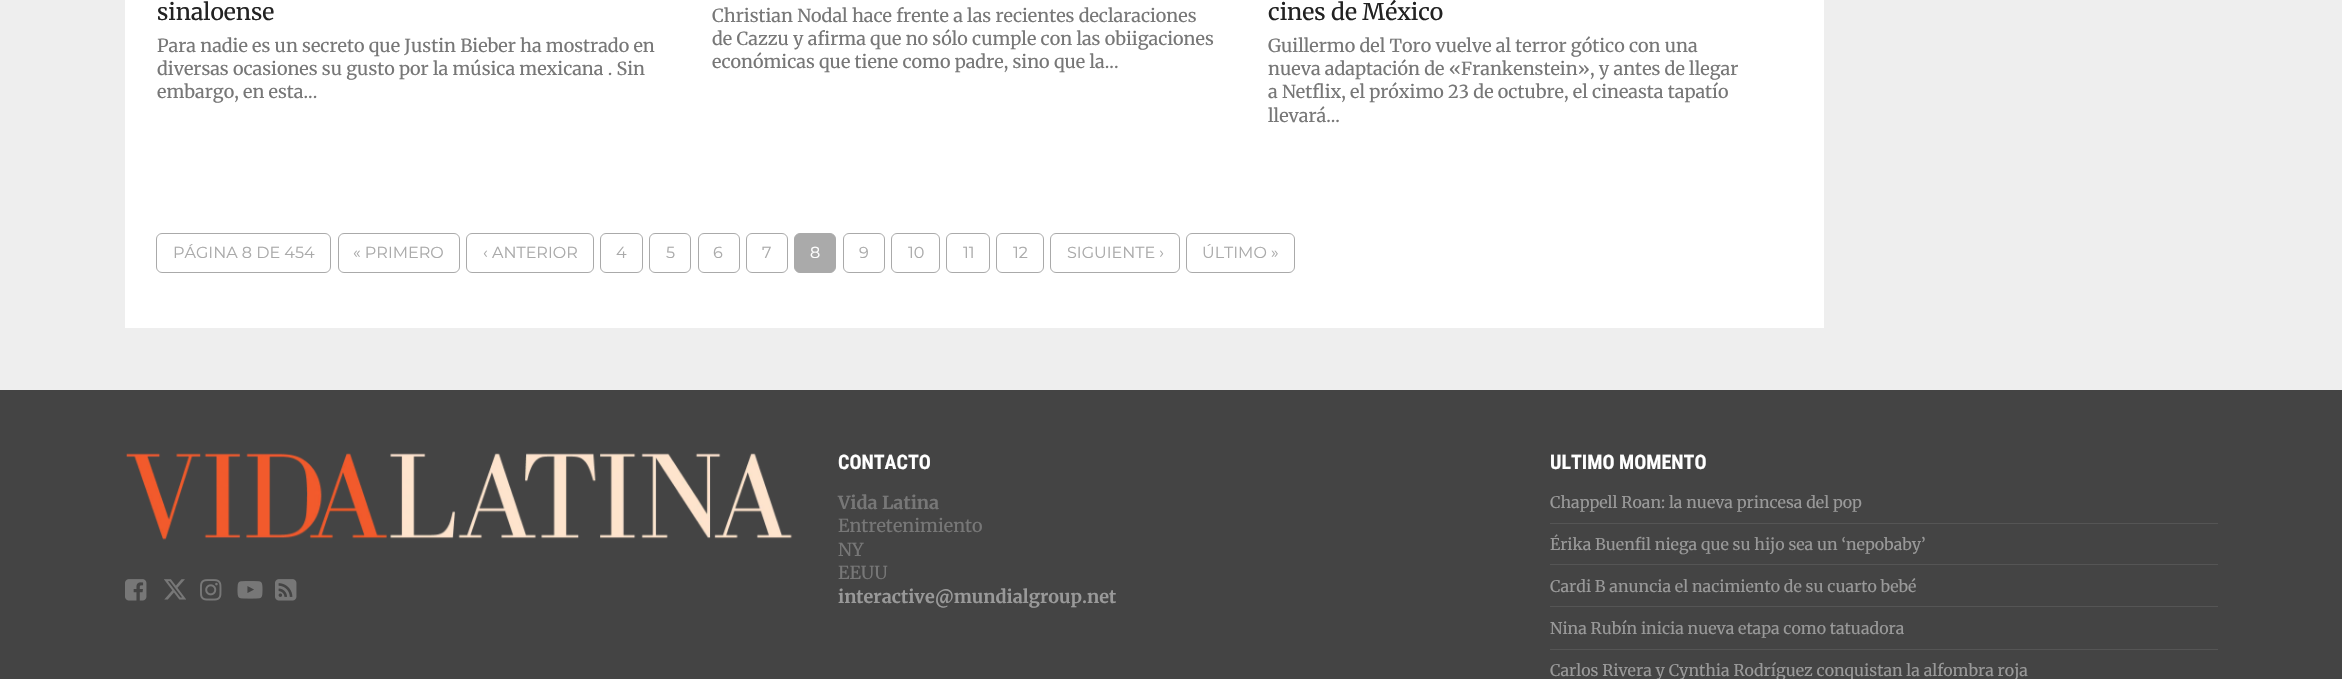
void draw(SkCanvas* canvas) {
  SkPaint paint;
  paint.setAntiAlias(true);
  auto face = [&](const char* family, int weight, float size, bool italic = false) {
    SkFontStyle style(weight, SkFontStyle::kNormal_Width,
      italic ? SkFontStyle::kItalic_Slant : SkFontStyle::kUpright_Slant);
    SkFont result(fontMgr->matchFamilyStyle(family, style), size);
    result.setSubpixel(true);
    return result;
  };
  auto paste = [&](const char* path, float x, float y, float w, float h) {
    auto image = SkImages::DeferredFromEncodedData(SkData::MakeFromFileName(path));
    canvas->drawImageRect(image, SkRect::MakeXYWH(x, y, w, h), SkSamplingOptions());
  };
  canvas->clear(0xffeeeeee);
  paint.setColor(0xffffffff);
  canvas->drawRect(SkRect::MakeXYWH(125, 0, 1699, 328), paint);
  paint.setStroke(true);
  paint.setStrokeWidth(1);
  paint.setColor(0xffaaaaaa);
  canvas->drawRoundRect(SkRect::MakeXYWH(156.5f, 233.5f, 174, 39), 5.5f, 5.5f, paint);
  canvas->drawRoundRect(SkRect::MakeXYWH(338.5f, 233.5f, 121, 39), 5.5f, 5.5f, paint);
  canvas->drawRoundRect(SkRect::MakeXYWH(466.5f, 233.5f, 127, 39), 5.5f, 5.5f, paint);
  canvas->drawRoundRect(SkRect::MakeXYWH(600.5f, 233.5f, 42, 39), 5.5f, 5.5f, paint);
  canvas->drawRoundRect(SkRect::MakeXYWH(649.5f, 233.5f, 41, 39), 5.5f, 5.5f, paint);
  canvas->drawRoundRect(SkRect::MakeXYWH(698.5f, 233.5f, 41, 39), 5.5f, 5.5f, paint);
  canvas->drawRoundRect(SkRect::MakeXYWH(746.5f, 233.5f, 41, 39), 5.5f, 5.5f, paint);
  paint.setStroke(false);
  canvas->drawRoundRect(SkRect::MakeXYWH(794.5f, 233.5f, 41, 39), 5.5f, 5.5f, paint);
  paint.setStroke(true);
  canvas->drawRoundRect(SkRect::MakeXYWH(794.5f, 233.5f, 41, 39), 5.5f, 5.5f, paint);
  canvas->drawRoundRect(SkRect::MakeXYWH(843.5f, 233.5f, 41, 39), 5.5f, 5.5f, paint);
  canvas->drawRoundRect(SkRect::MakeXYWH(891.5f, 233.5f, 48, 39), 5.5f, 5.5f, paint);
  canvas->drawRoundRect(SkRect::MakeXYWH(946.5f, 233.5f, 43, 39), 5.5f, 5.5f, paint);
  canvas->drawRoundRect(SkRect::MakeXYWH(996.5f, 233.5f, 47, 39), 5.5f, 5.5f, paint);
  canvas->drawRoundRect(SkRect::MakeXYWH(1050.5f, 233.5f, 129, 39), 5.5f, 5.5f, paint);
  canvas->drawRoundRect(SkRect::MakeXYWH(1186.5f, 233.5f, 108, 39), 5.5f, 5.5f, paint);
  paint.setStroke(false);
  paint.setColor(0xff444444);
  canvas->drawRect(SkRect::MakeXYWH(0, 390, 2342, 289), paint);
  paste("img/1.png", 126, 453, 667, 87);
  paste("img/2.png", 125, 579, 22, 22);
  paste("img/3.png", 164, 579, 22, 21);
  paste("img/4.png", 200, 579, 22, 22);
  paste("img/5.png", 237, 581, 26, 18);
  paste("img/6.png", 275, 579, 22, 22);
  {
    const struct { float x, y, w, h; SkColor color; } items[] = {
      {1550, 523, 668, 1, 0xff555555},
      {1550, 564, 668, 1, 0xff555555},
      {1550, 606, 668, 1, 0xff555555},
      {1550, 649, 668, 1, 0xff555555},
    };
    for (auto [x, y, w, h, color] : items) {
      paint.setColor(color);
      canvas->drawRect(SkRect::MakeXYWH(x, y, w, h), paint);
    }
  }
  auto f0 = face("Merriweather", 400, 23);
  paint.setColor(0xff222222);
  canvas->drawString("sinaloense", 157, 20, f0, paint);
  auto f1 = face("Merriweather", 400, 18);
  paint.setColor(0xff777777);
  {
    const struct { const char* s; float x, y; } items[] = {
      {"Para nadie es un secreto que Justin Bieber ha mostrado en", 157, 52},
      {"diversas ocasiones su gusto por la música mexicana . Sin", 157, 75},
      {"embargo, en esta...", 157, 98},
      {"Christian Nodal hace frente a las recientes declaraciones", 712, 22},
      {"de Cazzu y afirma que no sólo cumple con las obiigaciones", 712, 45},
      {"económicas que tiene como padre, sino que la...", 712, 68},
    };
    for (auto [s, x, y] : items) {
      canvas->drawString(s, x, y, f1, paint);
    }
  }
  paint.setColor(0xff222222);
  canvas->drawString("cines de México", 1268, 20, f0, paint);
  paint.setColor(0xff777777);
  {
    const struct { const char* s; float x, y; } items[] = {
      {"Guillermo del Toro vuelve al terror gótico con una", 1268, 52},
      {"nueva adaptación de «Frankenstein», y antes de llegar", 1268, 75},
      {"a Netflix, el próximo 23 de octubre, el cineasta tapatío", 1268, 98},
      {"llevará...", 1268, 122},
    };
    for (auto [s, x, y] : items) {
      canvas->drawString(s, x, y, f1, paint);
    }
  }
  auto f2 = face("Montserrat", 400, 16);
  paint.setColor(0xffaaaaaa);
  {
    const struct { const char* s; float x, y; } items[] = {
      {"PÁGINA 8 DE 454", 173, 258},
      {"« PRIMERO", 353, 258},
      {"‹ ANTERIOR", 483, 258},
      {"4", 616, 258},
      {"5", 666, 258},
      {"6", 713, 258},
      {"7", 762, 258},
    };
    for (auto [s, x, y] : items) {
      canvas->drawString(s, x, y, f2, paint);
    }
  }
  paint.setColor(0xffffffff);
  canvas->drawString("8", 810, 258, f2, paint);
  paint.setColor(0xffaaaaaa);
  {
    const struct { const char* s; float x, y; } items[] = {
      {"9", 859, 258},
      {"10", 908, 258},
      {"11", 963, 258},
      {"12", 1013, 258},
      {"SIGUIENTE ›", 1067, 258},
      {"ÚLTIMO »", 1202, 258},
    };
    for (auto [s, x, y] : items) {
      canvas->drawString(s, x, y, f2, paint);
    }
  }
  auto f3 = face("Roboto Condensed", 700, 20);
  paint.setColor(0xffffffff);
  canvas->drawString("CONTACTO", 838, 469, f3, paint);
  auto f4 = face("Merriweather", 700, 18);
  paint.setColor(0xff777777);
  canvas->drawString("Vida Latina", 838, 509, f4, paint);
  {
    const struct { const char* s; float x, y; } items[] = {
      {"Entretenimiento", 838, 532},
      {"NY", 838, 556},
      {"EEUU", 838, 579},
    };
    for (auto [s, x, y] : items) {
      canvas->drawString(s, x, y, f1, paint);
    }
  }
  paint.setColor(0xff999999);
  canvas->drawString("interactive@mundialgroup.net", 838, 603, f4, paint);
  paint.setColor(0xffffffff);
  canvas->drawString("ULTIMO MOMENTO", 1550, 469, f3, paint);
  auto f5 = face("Merriweather", 400, 16);
  paint.setColor(0xff999999);
  {
    const struct { const char* s; float x, y; } items[] = {
      {"Chappell Roan: la nueva princesa del pop", 1550, 508},
      {"Érika Buenfil niega que su hijo sea un ‘nepobaby’", 1550, 550},
      {"Cardi B anuncia el nacimiento de su cuarto bebé", 1550, 592},
      {"Nina Rubín inicia nueva etapa como tatuadora", 1550, 634},
      {"Carlos Rivera y Cynthia Rodríguez conquistan la alfombra roja", 1550, 676},
    };
    for (auto [s, x, y] : items) {
      canvas->drawString(s, x, y, f5, paint);
    }
  }
}
